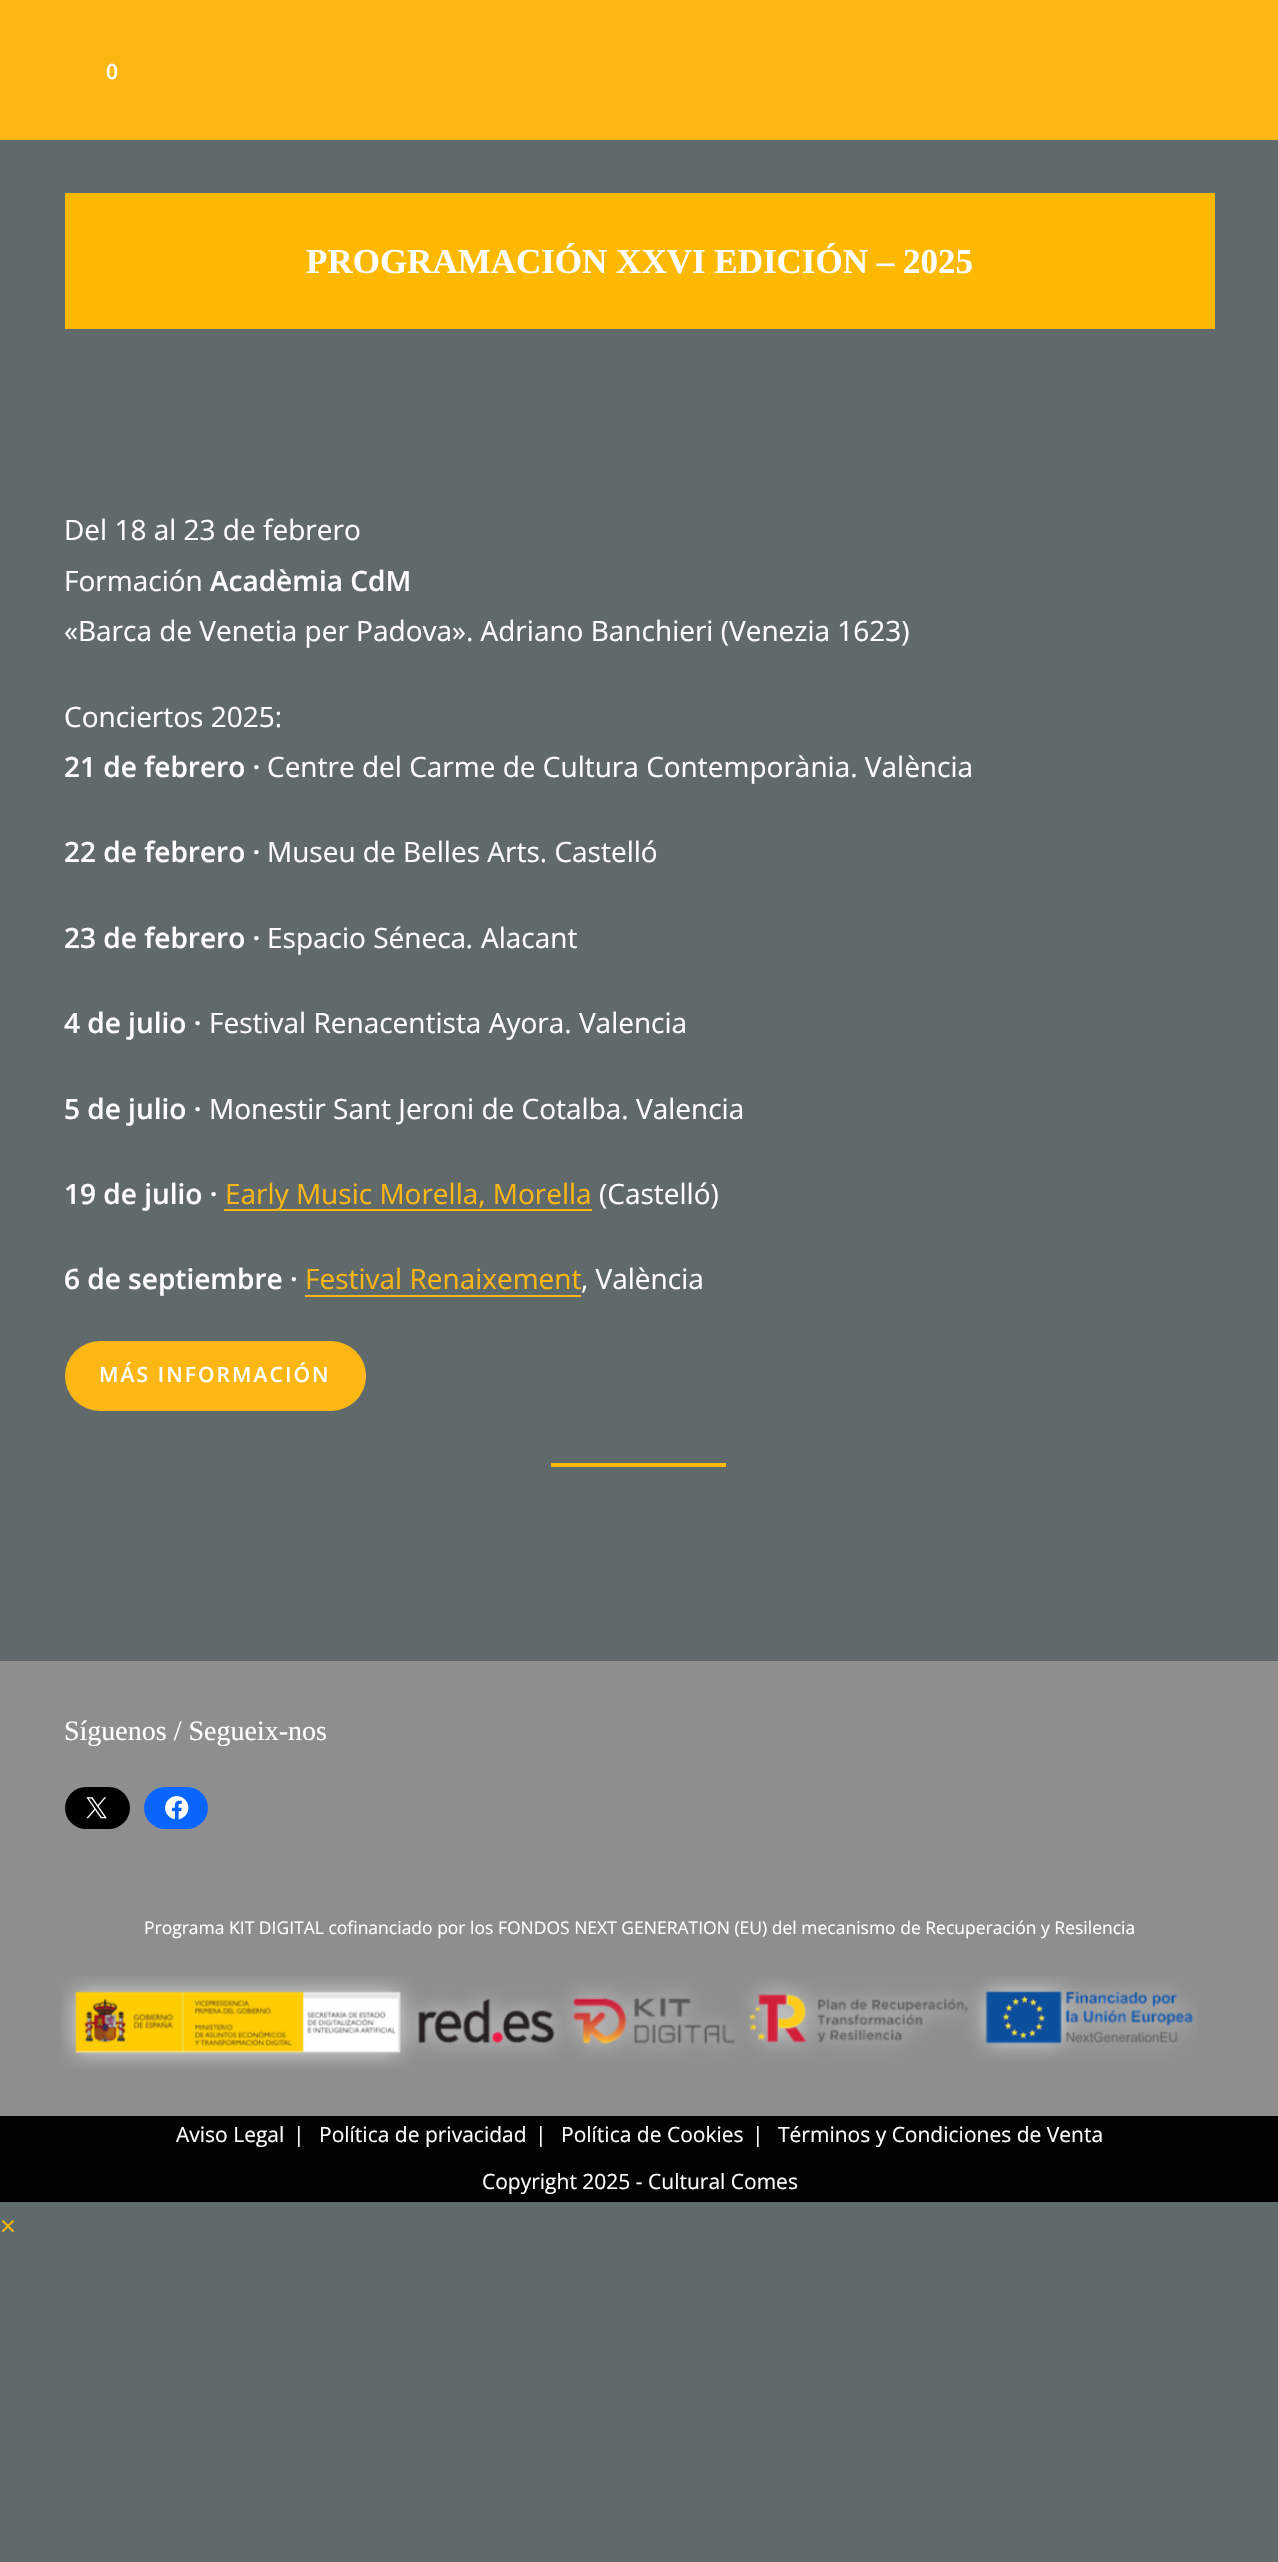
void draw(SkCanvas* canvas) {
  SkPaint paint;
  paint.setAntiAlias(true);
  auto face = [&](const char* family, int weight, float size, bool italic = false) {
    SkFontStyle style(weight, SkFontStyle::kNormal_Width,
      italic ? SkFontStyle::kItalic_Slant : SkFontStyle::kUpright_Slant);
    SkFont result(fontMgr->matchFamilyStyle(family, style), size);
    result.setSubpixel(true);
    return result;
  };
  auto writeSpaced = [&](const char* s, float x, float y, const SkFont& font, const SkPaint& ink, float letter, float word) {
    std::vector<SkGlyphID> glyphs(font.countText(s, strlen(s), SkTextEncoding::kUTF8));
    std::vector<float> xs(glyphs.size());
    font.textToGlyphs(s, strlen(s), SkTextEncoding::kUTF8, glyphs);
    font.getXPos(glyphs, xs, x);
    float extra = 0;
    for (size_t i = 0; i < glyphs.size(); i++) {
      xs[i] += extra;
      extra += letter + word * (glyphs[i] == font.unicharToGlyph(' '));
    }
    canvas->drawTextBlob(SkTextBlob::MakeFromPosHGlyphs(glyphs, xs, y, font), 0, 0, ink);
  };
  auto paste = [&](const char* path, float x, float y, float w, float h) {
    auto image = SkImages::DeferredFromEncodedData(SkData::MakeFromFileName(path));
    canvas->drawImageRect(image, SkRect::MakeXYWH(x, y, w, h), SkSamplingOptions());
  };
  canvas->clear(0xff616a6b);
  {
    const struct { float x, y, w, h; SkColor color; } items[] = {
      {0, 0, 1278, 140, 0xfffcb714},
      {65, 193, 1150, 136, 0xfffcb900},
      {224, 1209, 368, 2, 0xfffcb714},
      {305, 1295, 276, 2, 0xfffcb714},
    };
    for (auto [x, y, w, h, color] : items) {
      paint.setColor(color);
      canvas->drawRect(SkRect::MakeXYWH(x, y, w, h), paint);
    }
  }
  canvas->drawRoundRect(SkRect::MakeXYWH(65, 1341, 301, 70), 35, 35, paint);
  paint.setColor(0xfffcb900);
  canvas->drawRect(SkRect::MakeXYWH(551, 1463, 175, 4), paint);
  paint.setColor(0xff8e8e8e);
  canvas->drawRect(SkRect::MakeXYWH(0, 1661, 1278, 455), paint);
  paint.setColor(0xff000000);
  canvas->drawRoundRect(SkRect::MakeXYWH(65, 1787, 65, 42), 21, 21, paint);
  paste("img/1.png", 86, 1797, 21, 22);
  paint.setColor(0xff0866ff);
  canvas->drawRoundRect(SkRect::MakeXYWH(144, 1787, 64, 42), 21, 21, paint);
  paste("img/2.png", 165, 1796, 24, 24);
  paste("img/3.png", 60, 1976, 1138, 93);
  paint.setColor(0xff020202);
  canvas->drawRect(SkRect::MakeXYWH(0, 2116, 1278, 86), paint);
  auto f0 = face("Open Sans", 600, 21);
  paint.setColor(0xffffffff);
  writeSpaced("0", 106, 79, f0, paint, 1, 0);
  auto f1 = face("Liberation Serif", 700, 35);
  canvas->drawString("PROGRAMACIÓN XXVI EDICIÓN – 2025", 306, 273, f1, paint);
  auto f2 = face("Open Sans", 400, 28);
  canvas->drawString("Del 18 al 23 de febrero", 64, 540, f2, paint);
  canvas->drawString("Formación", 64, 591, f2, paint);
  auto f3 = face("Open Sans", 600, 28);
  canvas->drawString("Acadèmia CdM", 210, 591, f3, paint);
  canvas->drawString("«Barca de Venetia per Padova». Adriano Banchieri (Venezia 1623)", 64, 641, f2, paint);
  canvas->drawString("Conciertos 2025:", 64, 727, f2, paint);
  canvas->drawString("21 de febrero ·", 64, 777, f3, paint);
  canvas->drawString("Centre del Carme de Cultura Contemporània. València", 267, 777, f2, paint);
  canvas->drawString("22 de febrero ·", 64, 862, f3, paint);
  canvas->drawString("Museu de Belles Arts. Castelló", 267, 862, f2, paint);
  canvas->drawString("23 de febrero ·", 64, 948, f3, paint);
  canvas->drawString("Espacio Séneca", 267, 948, f2, paint);
  auto f4 = face("Open Sans", 400, 28, true);
  canvas->drawString(".", 467, 948, f4, paint);
  canvas->drawString("Alacant", 481, 948, f2, paint);
  canvas->drawString("4 de julio ·", 64, 1033, f3, paint);
  canvas->drawString("Festival Renacentista Ayora. Valencia", 209, 1033, f2, paint);
  canvas->drawString("5 de julio ·", 64, 1119, f3, paint);
  canvas->drawString("Monestir Sant Jeroni de Cotalba. Valencia", 209, 1119, f2, paint);
  canvas->drawString("19 de julio ·", 64, 1204, f3, paint);
  paint.setColor(0xfffcb714);
  canvas->drawString("Early Music Morella, Morella", 225, 1204, f2, paint);
  paint.setColor(0xffffffff);
  canvas->drawString("(Castelló)", 599, 1204, f2, paint);
  canvas->drawString("6 de septiembre ·", 64, 1289, f3, paint);
  paint.setColor(0xfffcb714);
  canvas->drawString("Festival Renaixement", 305, 1289, f2, paint);
  paint.setColor(0xffffffff);
  canvas->drawString(", València", 581, 1289, f2, paint);
  writeSpaced("MÁS INFORMACIÓN", 99, 1382, f0, paint, 2.1f, 0);
  auto f5 = face("Liberation Serif", 400, 28);
  canvas->drawString("Síguenos / Segueix-nos", 64, 1740, f5, paint);
  auto f6 = face("Open Sans", 400, 17.5f);
  canvas->drawString("Programa KIT DIGITAL cofinanciado por los FONDOS NEXT GENERATION (EU) del mecanismo de Recuperación y Resilencia", 144, 1934, f6, paint);
  auto f7 = face("Open Sans", 400, 21);
  {
    const struct { const char* s; float x, y; } items[] = {
      {"Aviso Legal", 176, 2142},
      {"|", 293, 2142},
      {"Política de privacidad", 319, 2142},
      {"|", 535, 2142},
      {"Política de Cookies", 561, 2142},
      {"|", 752, 2142},
      {"Términos y Condiciones de Venta", 778, 2142},
      {"Copyright 2025 - Cultural Comes", 482, 2189},
    };
    for (auto [s, x, y] : items) {
      canvas->drawString(s, x, y, f7, paint);
    }
  }
  paint.setColor(0xfffcb714);
  canvas->drawString("×", 0, 2236, f2, paint);
}
